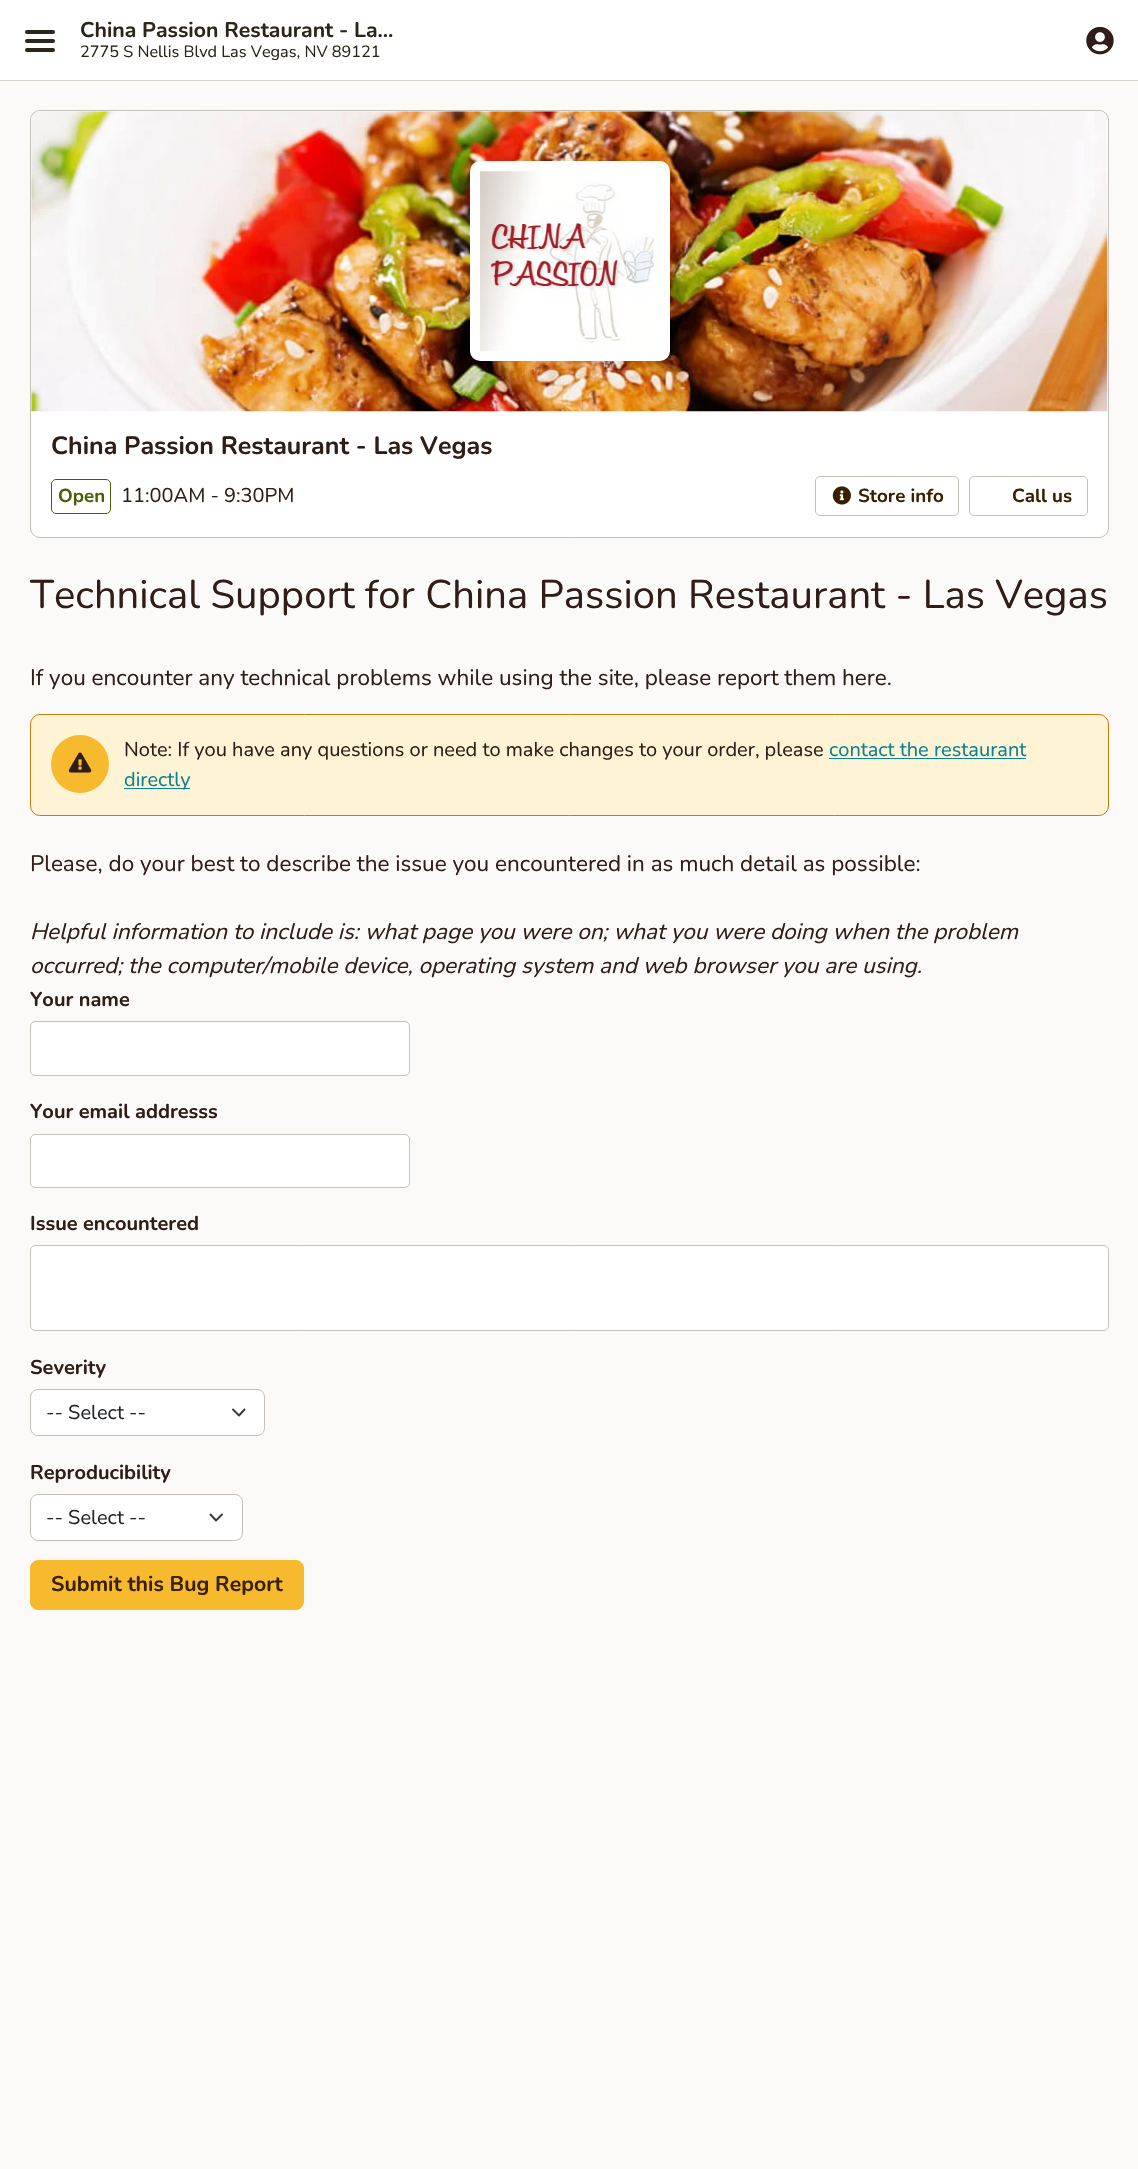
void draw(SkCanvas* canvas) {
  SkPaint paint;
  paint.setAntiAlias(true);
  auto face = [&](const char* family, int weight, float size, bool italic = false) {
    SkFontStyle style(weight, SkFontStyle::kNormal_Width,
      italic ? SkFontStyle::kItalic_Slant : SkFontStyle::kUpright_Slant);
    SkFont result(fontMgr->matchFamilyStyle(family, style), size);
    result.setSubpixel(true);
    return result;
  };
  auto paste = [&](const char* path, float x, float y, float w, float h) {
    auto image = SkImages::DeferredFromEncodedData(SkData::MakeFromFileName(path));
    canvas->drawImageRect(image, SkRect::MakeXYWH(x, y, w, h), SkSamplingOptions());
  };
  auto shape = [&](const char* data, bool evenOdd = false) {
    SkPath result = *SkParsePath::FromSVGString(data);
    if (evenOdd) result.setFillType(SkPathFillType::kEvenOdd);
    return result;
  };
  canvas->clear(0xfffbfaf9);
  paint.setColor(0xffd7d4cd);
  canvas->drawPath(shape("M0 80V81H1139V1V80Z"), paint);
  paint.setColor(0xffffffff);
  canvas->drawRect(SkRect::MakeXYWH(0, 0, 1138, 80), paint);
  paint.setColor(0xff2c261a);
  canvas->drawRoundRect(SkRect::MakeXYWH(25, 30, 30, 4), 2, 2, paint);
  canvas->drawRoundRect(SkRect::MakeXYWH(25, 39, 30, 4), 2, 2, paint);
  canvas->drawRoundRect(SkRect::MakeXYWH(25, 48, 30, 4), 2, 2, paint);
  paste("img/1.png", 1086, 26, 28, 29);
  paint.setColor(0xffffffff);
  canvas->drawRoundRect(SkRect::MakeXYWH(30, 110, 1079, 428), 10, 10, paint);
  paint.setStroke(true);
  paint.setStrokeWidth(1);
  paint.setColor(0x8c948d7c);
  canvas->drawRoundRect(SkRect::MakeXYWH(30.5f, 110.5f, 1078, 427), 9.5f, 9.5f, paint);
  paste("img/2.png", 31, 111, 1077, 301);
  paint.setStroke(false);
  paint.setColor(0xffffffff);
  canvas->drawRoundRect(SkRect::MakeXYWH(470, 161, 200, 200), 10, 10, paint);
  paste("img/3.png", 480, 171, 175, 181);
  paint.setStroke(true);
  paint.setColor(0xff4a5f05);
  canvas->drawRoundRect(SkRect::MakeXYWH(51.5f, 479.5f, 59, 34), 4.5f, 4.5f, paint);
  paint.setColor(0xffc4c0b7);
  canvas->drawRoundRect(SkRect::MakeXYWH(815.5f, 476.5f, 143, 39), 4.5f, 4.5f, paint);
  paste("img/4.png", 832, 486, 19, 19);
  canvas->drawRoundRect(SkRect::MakeXYWH(969.5f, 476.5f, 118, 39), 4.5f, 4.5f, paint);
  paint.setStroke(false);
  paint.setColor(0xfffff3d5);
  canvas->drawRoundRect(SkRect::MakeXYWH(30.5f, 714.5f, 1078, 101), 9.5f, 9.5f, paint);
  paint.setStroke(true);
  paint.setColor(0xffc57e0c);
  canvas->drawRoundRect(SkRect::MakeXYWH(30.5f, 714.5f, 1078, 101), 9.5f, 9.5f, paint);
  paint.setStroke(false);
  paint.setColor(0xfff7b92e);
  canvas->drawCircle(80, 764, 29, paint);
  paste("img/5.png", 68, 752, 24, 21);
  paint.setColor(0xff078291);
  canvas->drawRect(SkRect::MakeXYWH(829, 758, 197, 1), paint);
  canvas->drawRect(SkRect::MakeXYWH(124, 788, 66, 1), paint);
  paint.setColor(0xffffffff);
  canvas->drawRoundRect(SkRect::MakeXYWH(31, 1023, 378, 52), 4, 4, paint);
  paint.setStroke(true);
  paint.setColor(0xffc7c3bb);
  canvas->drawRoundRect(SkRect::MakeXYWH(30.5f, 1021.5f, 379, 54), 4.5f, 4.5f, paint);
  paint.setStroke(false);
  paint.setColor(0xffffffff);
  canvas->drawRoundRect(SkRect::MakeXYWH(31, 1135, 378, 51), 4, 4, paint);
  paint.setStroke(true);
  paint.setColor(0xffc7c3bb);
  canvas->drawRoundRect(SkRect::MakeXYWH(30.5f, 1134.5f, 379, 53), 4.5f, 4.5f, paint);
  paint.setStroke(false);
  paint.setColor(0xffffffff);
  canvas->drawRoundRect(SkRect::MakeXYWH(30.5f, 1245.5f, 1078, 85), 4.5f, 4.5f, paint);
  paint.setStroke(true);
  paint.setColor(0xffc7c3bb);
  canvas->drawRoundRect(SkRect::MakeXYWH(30.5f, 1245.5f, 1078, 85), 4.5f, 4.5f, paint);
  paint.setStroke(false);
  paint.setColor(0xffffffff);
  canvas->drawRoundRect(SkRect::MakeXYWH(30, 1389, 235, 47), 8, 8, paint);
  paint.setStroke(true);
  paint.setStrokeWidth(1.9f);
  paint.setStrokeCap(SkPaint::kRound_Cap);
  paint.setStrokeJoin(SkPaint::kRound_Join);
  paint.setColor(0xff343a40);
  canvas->drawPath(shape("M233 1409.5L239 1415.5L244.5 1409.5"), paint);
  paint.setStrokeWidth(1);
  paint.setStrokeCap(SkPaint::kButt_Cap);
  paint.setStrokeJoin(SkPaint::kMiter_Join);
  paint.setColor(0x8c948d7c);
  canvas->drawRoundRect(SkRect::MakeXYWH(30.5f, 1389.5f, 234, 46), 7.5f, 7.5f, paint);
  paint.setStroke(false);
  paint.setColor(0xffffffff);
  canvas->drawRoundRect(SkRect::MakeXYWH(30, 1494, 213, 47), 8, 8, paint);
  paint.setStroke(true);
  paint.setStrokeWidth(1.9f);
  paint.setStrokeCap(SkPaint::kRound_Cap);
  paint.setStrokeJoin(SkPaint::kRound_Join);
  paint.setColor(0xff343a40);
  canvas->drawPath(shape("M210.5 1514.5L216 1520.5L222 1514.5"), paint);
  paint.setStrokeWidth(1);
  paint.setStrokeCap(SkPaint::kButt_Cap);
  paint.setStrokeJoin(SkPaint::kMiter_Join);
  paint.setColor(0x8c948d7c);
  canvas->drawRoundRect(SkRect::MakeXYWH(30.5f, 1494.5f, 212, 46), 7.5f, 7.5f, paint);
  paint.setStroke(false);
  paint.setColor(0xfff7b92e);
  canvas->drawRoundRect(SkRect::MakeXYWH(30.5f, 1560.5f, 273, 49), 7.5f, 7.5f, paint);
  paint.setStroke(true);
  canvas->drawRoundRect(SkRect::MakeXYWH(30.5f, 1560.5f, 273, 49), 7.5f, 7.5f, paint);
  auto f0 = face("Nunito", 700, 21.25f);
  paint.setStroke(false);
  paint.setColor(0xff2c261a);
  canvas->drawString("China Passion Restaurant - La…", 80, 37, f0, paint);
  auto f1 = face("Nunito", 400, 16.25f);
  canvas->drawString("2775 S Nellis Blvd Las Vegas, NV 89121", 80, 57, f1, paint);
  auto f2 = face("Nunito", 700, 25);
  paint.setColor(0xff301d17);
  canvas->drawString("China Passion Restaurant - Las Vegas", 51, 454, f2, paint);
  auto f3 = face("Nunito", 700, 18.75f);
  paint.setColor(0xff4a5f05);
  canvas->drawString("Open", 58, 502, f3, paint);
  auto f4 = face("Nunito", 400, 20);
  paint.setColor(0xff301d17);
  canvas->drawString("11:00AM - 9:30PM", 121, 502, f4, paint);
  paint.setColor(0xff392100);
  canvas->drawString("Store info", 858, 502, f3, paint);
  canvas->drawString("Call us", 1012, 502, f3, paint);
  auto f5 = face("Nunito", 400, 40);
  paint.setColor(0xff301d17);
  canvas->drawString("Technical Support for China Passion Restaurant - Las Vegas", 30, 608, f5, paint);
  auto f6 = face("Nunito", 400, 22.5f);
  canvas->drawString("If you encounter any technical problems while using the site, please report them here.", 30, 685, f6, paint);
  canvas->drawString("Note: If you have any questions or need to make changes to your order, please", 124, 756, f4, paint);
  paint.setColor(0xff078291);
  canvas->drawString("contact the restaurant", 829, 756, f4, paint);
  canvas->drawString("directly", 124, 786, f4, paint);
  paint.setColor(0xff301d17);
  canvas->drawString("Please, do your best to describe the issue you encountered in as much detail as possible:", 30, 871, f6, paint);
  auto f7 = face("Nunito", 400, 22.5f, true);
  canvas->drawString("Helpful information to include is: what page you were on; what you were doing when the problem", 30, 939, f7, paint);
  canvas->drawString("occurred; the computer/mobile device, operating system and web browser you are using.", 30, 973, f7, paint);
  auto f8 = face("Nunito", 700, 20);
  {
    const struct { const char* s; float x, y; } items[] = {
      {"Your name", 30, 1006},
      {"Your email addresss", 30, 1118},
      {"Issue encountered", 30, 1230},
      {"Severity", 30, 1374},
    };
    for (auto [s, x, y] : items) {
      canvas->drawString(s, x, y, f8, paint);
    }
  }
  paint.setColor(0xff212529);
  canvas->drawString("-- Select --", 46, 1419, f4, paint);
  paint.setColor(0xff301d17);
  canvas->drawString("Reproducibility", 30, 1479, f8, paint);
  paint.setColor(0xff212529);
  canvas->drawString("-- Select --", 46, 1524, f4, paint);
  paint.setColor(0xff392100);
  canvas->drawString("Submit this Bug Report", 51, 1591, f0, paint);
}
